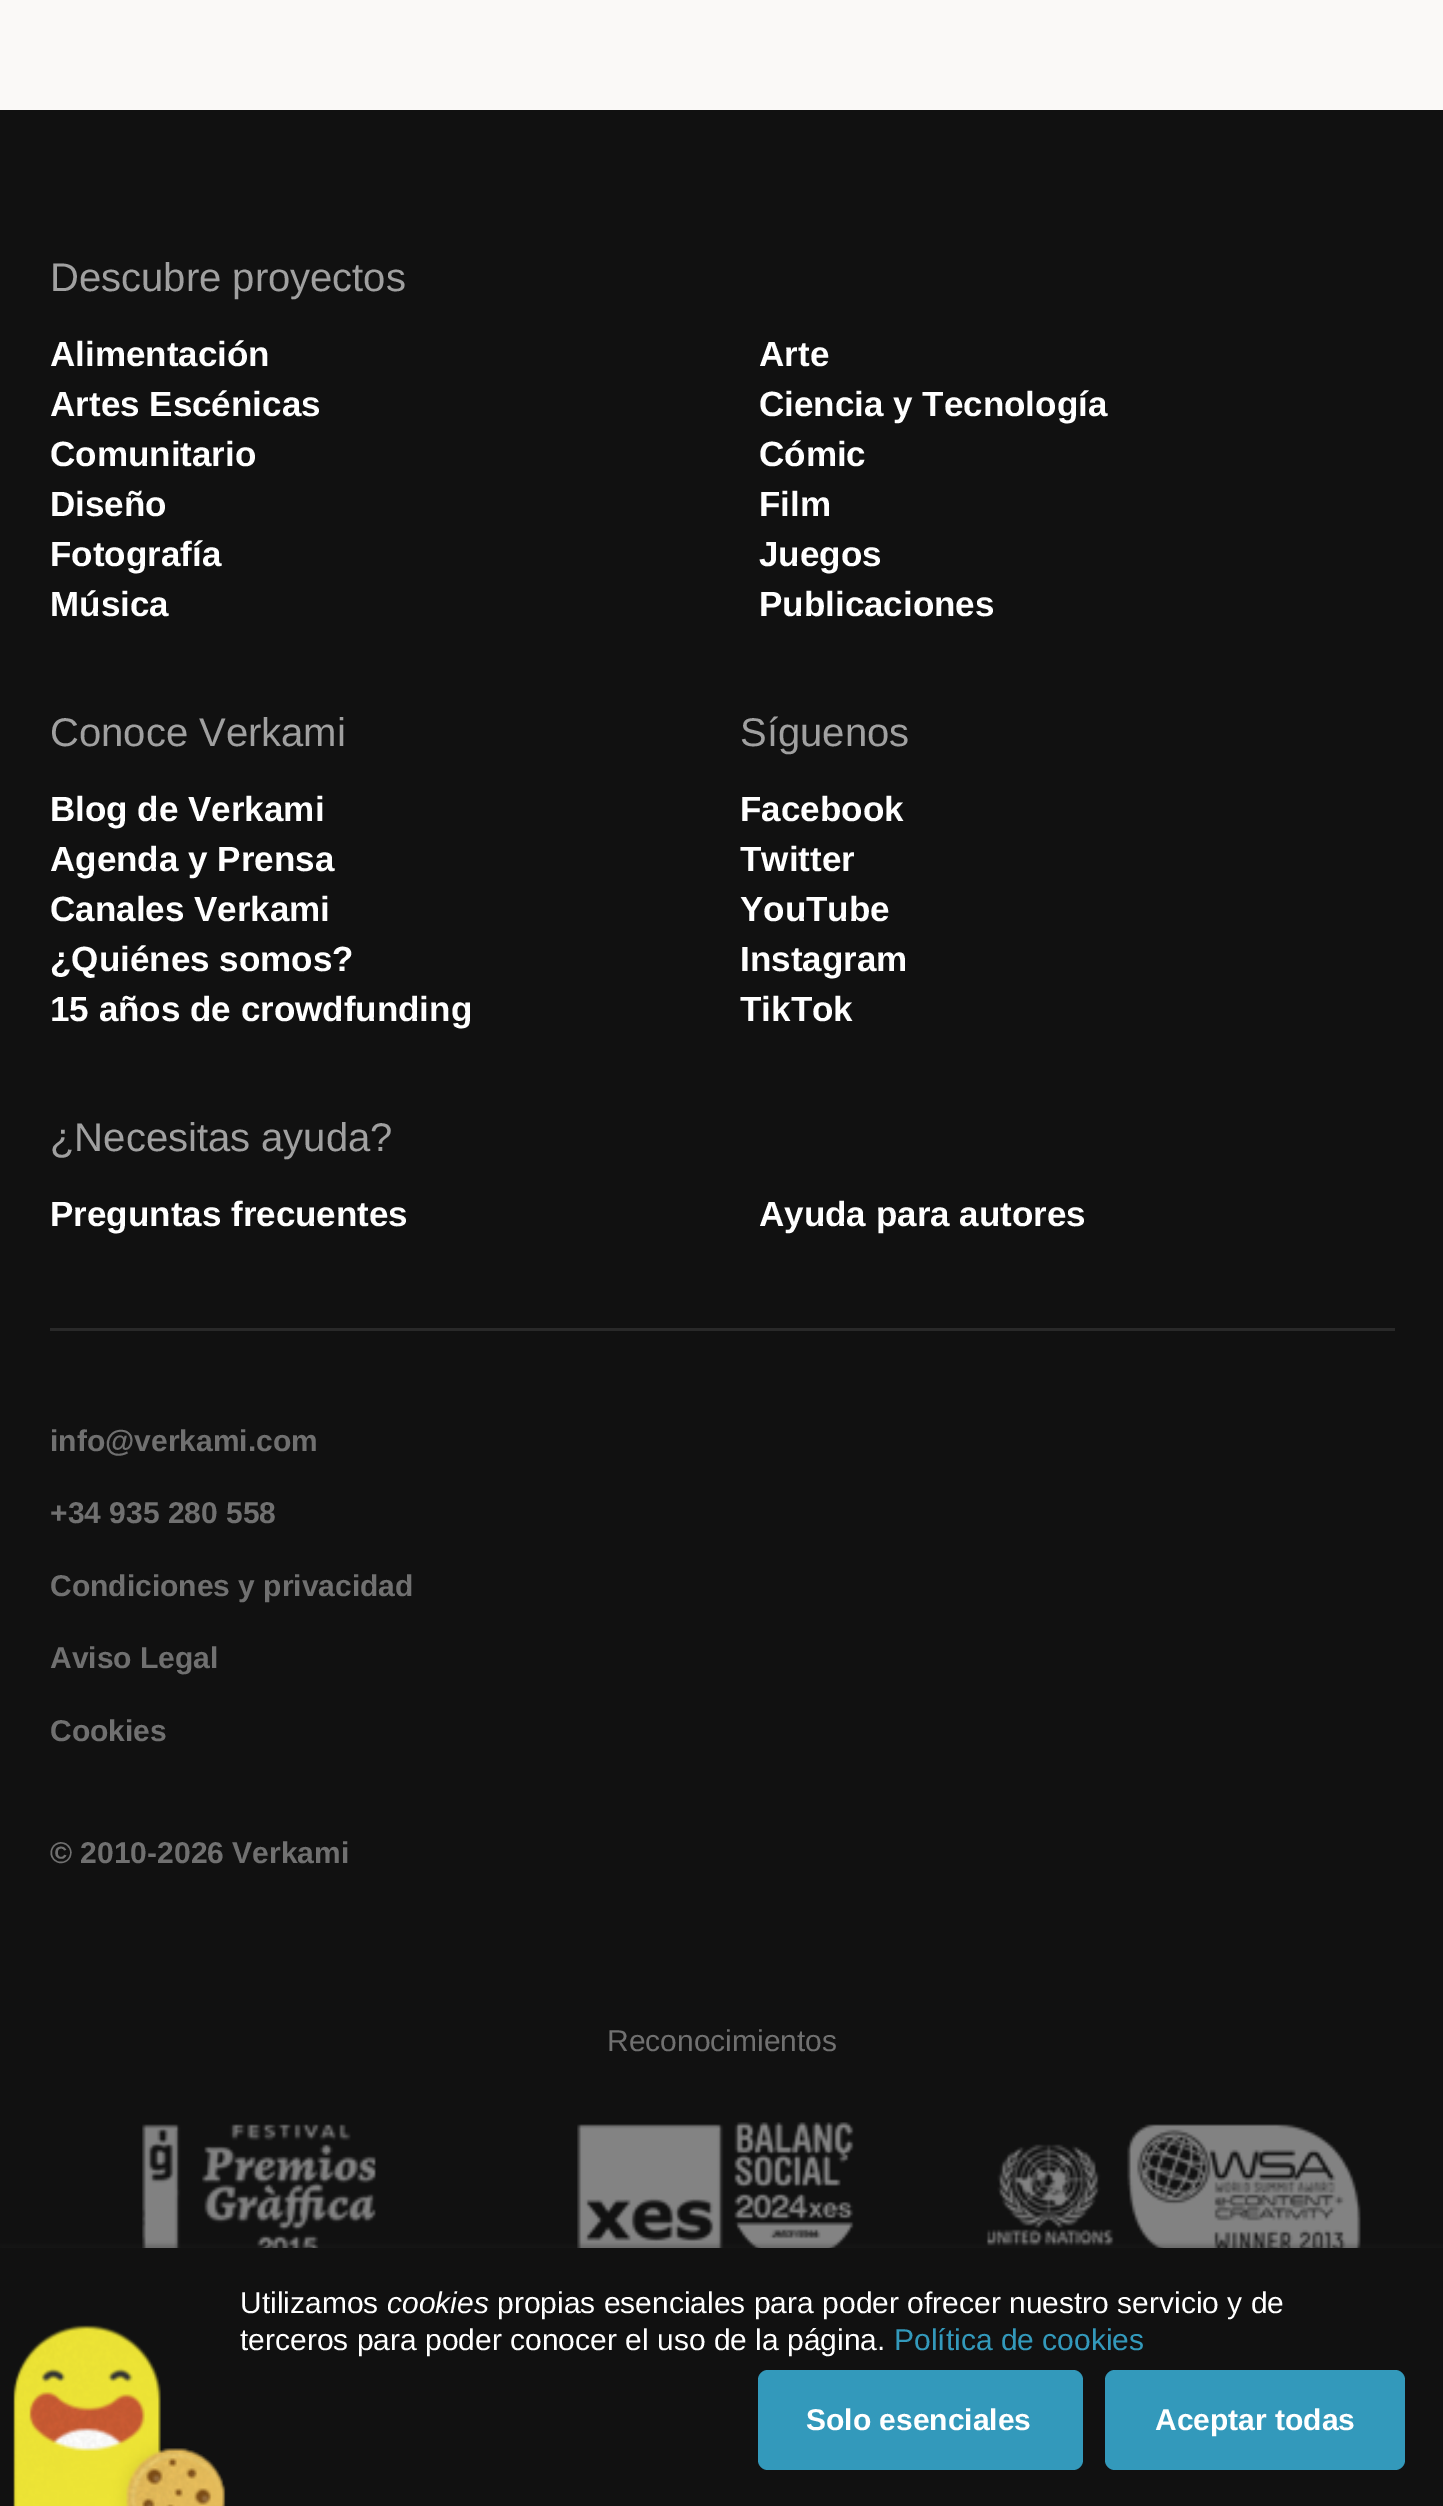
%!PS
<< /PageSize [1443 2506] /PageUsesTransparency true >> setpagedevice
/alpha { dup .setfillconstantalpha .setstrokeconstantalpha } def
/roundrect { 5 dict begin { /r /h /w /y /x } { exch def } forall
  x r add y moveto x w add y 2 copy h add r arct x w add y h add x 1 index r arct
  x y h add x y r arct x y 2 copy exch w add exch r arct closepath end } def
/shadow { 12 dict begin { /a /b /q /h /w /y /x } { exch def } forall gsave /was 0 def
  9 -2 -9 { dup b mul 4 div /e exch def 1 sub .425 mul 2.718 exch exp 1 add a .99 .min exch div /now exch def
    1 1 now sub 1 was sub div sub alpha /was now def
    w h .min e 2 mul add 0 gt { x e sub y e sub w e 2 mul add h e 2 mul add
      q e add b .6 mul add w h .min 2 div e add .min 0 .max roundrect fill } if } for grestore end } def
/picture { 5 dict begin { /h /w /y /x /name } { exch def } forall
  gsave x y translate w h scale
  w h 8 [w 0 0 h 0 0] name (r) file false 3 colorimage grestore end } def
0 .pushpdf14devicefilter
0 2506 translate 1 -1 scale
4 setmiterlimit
0.98 0.976 0.969 setrgbcolor
0 0 1443 2506 rectfill
0.067 setgray
0 110 1443 2138 rectfill
/LiberationSans-Regular [40 0 0 -40 0 0] selectfont
0.627 setgray
50 291 moveto (Descubre proyectos) show
/LiberationSans-Bold [35 0 0 -35 0 0] selectfont
1 setgray
50 366 moveto (Alimentación) show
759 366 moveto (Arte) show
50 416 moveto (Artes Escénicas) show
759 416 moveto (Ciencia y Tecnología) show
50 466 moveto (Comunitario) show
759 466 moveto (Cómic) show
50 516 moveto (Diseño) show
759 516 moveto (Film) show
50 566 moveto (Fotografía) show
759 566 moveto (Juegos) show
50 616 moveto (Música) show
759 616 moveto (Publicaciones) show
/LiberationSans-Regular [40 0 0 -40 0 0] selectfont
0.627 setgray
50 746 moveto (Conoce Verkami) show
/LiberationSans-Bold [35 0 0 -35 0 0] selectfont
1 setgray
50 821 moveto (Blog de Verkami) show
50 871 moveto (Agenda y Prensa) show
50 921 moveto (Canales Verkami) show
50 971 moveto (¿Quiénes somos?) show
50 1021 moveto (15 años de crowdfunding) show
/LiberationSans-Regular [40 0 0 -40 0 0] selectfont
0.627 setgray
740 746 moveto (Síguenos) show
/LiberationSans-Bold [35 0 0 -35 0 0] selectfont
1 setgray
740 821 moveto (Facebook) show
740 871 moveto (Twitter) show
740 921 moveto (YouTube) show
740 971 moveto (Instagram) show
740 1021 moveto (TikTok) show
/LiberationSans-Regular [40 0 0 -40 0 0] selectfont
0.627 setgray
50 1151 moveto (¿Necesitas ayuda?) show
/LiberationSans-Bold [35 0 0 -35 0 0] selectfont
1 setgray
50 1226 moveto (Preguntas frecuentes) show
759 1226 moveto (Ayuda para autores) show
0.161 setgray
50 1328 1345 3 rectfill
/LiberationSans-Bold [30 0 0 -30 0 0] selectfont
0.439 setgray
50 1451 moveto (info@verkami.com) show
50 1523 moveto (+34 935 280 558) show
50 1596 moveto (Condiciones y privacidad) show
50 1668 moveto (Aviso Legal) show
50 1741 moveto (Cookies) show
50 1863 moveto (© 2010-2026 Verkami) show
/LiberationSans-Regular [30 0 0 -30 0 0] selectfont
607 2051 moveto (Reconocimientos) show
(img1.rgb) 142 2124 234 124 picture
(img2.rgb) 577 2122 277 126 picture
(img3.rgb) 986 2124 375 124 picture
0.133 setgray
0 2245 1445 260 0 2.5 0.3 shadow
0.067 setgray
0 2248 1443 258 rectfill
(img4.rgb) 13 2325 213 181 picture
1 setgray
240 2313 moveto (Utilizamos) show
/LiberationSans-Italic [30 0 0 -30 0 0] selectfont
387 2313 moveto (cookies) show
/LiberationSans-Regular [30 0 0 -30 0 0] selectfont
497 2313 moveto (propias esenciales para poder ofrecer nuestro servicio y de) show
240 2350 moveto (terceros para poder conocer el uso de la página.) show
0.2 0.6 0.733 setrgbcolor
894 2350 moveto (Política de cookies) show
758 2370 325 100 10 roundrect fill
/LiberationSans-Bold [30 0 0 -30 0 0] selectfont
1 setgray
806 2430 moveto (Solo esenciales) show
0.2 0.6 0.733 setrgbcolor
1105 2370 300 100 10 roundrect fill
1 setgray
1155 2430 moveto (Aceptar todas) show
.poppdf14devicefilter showpage
